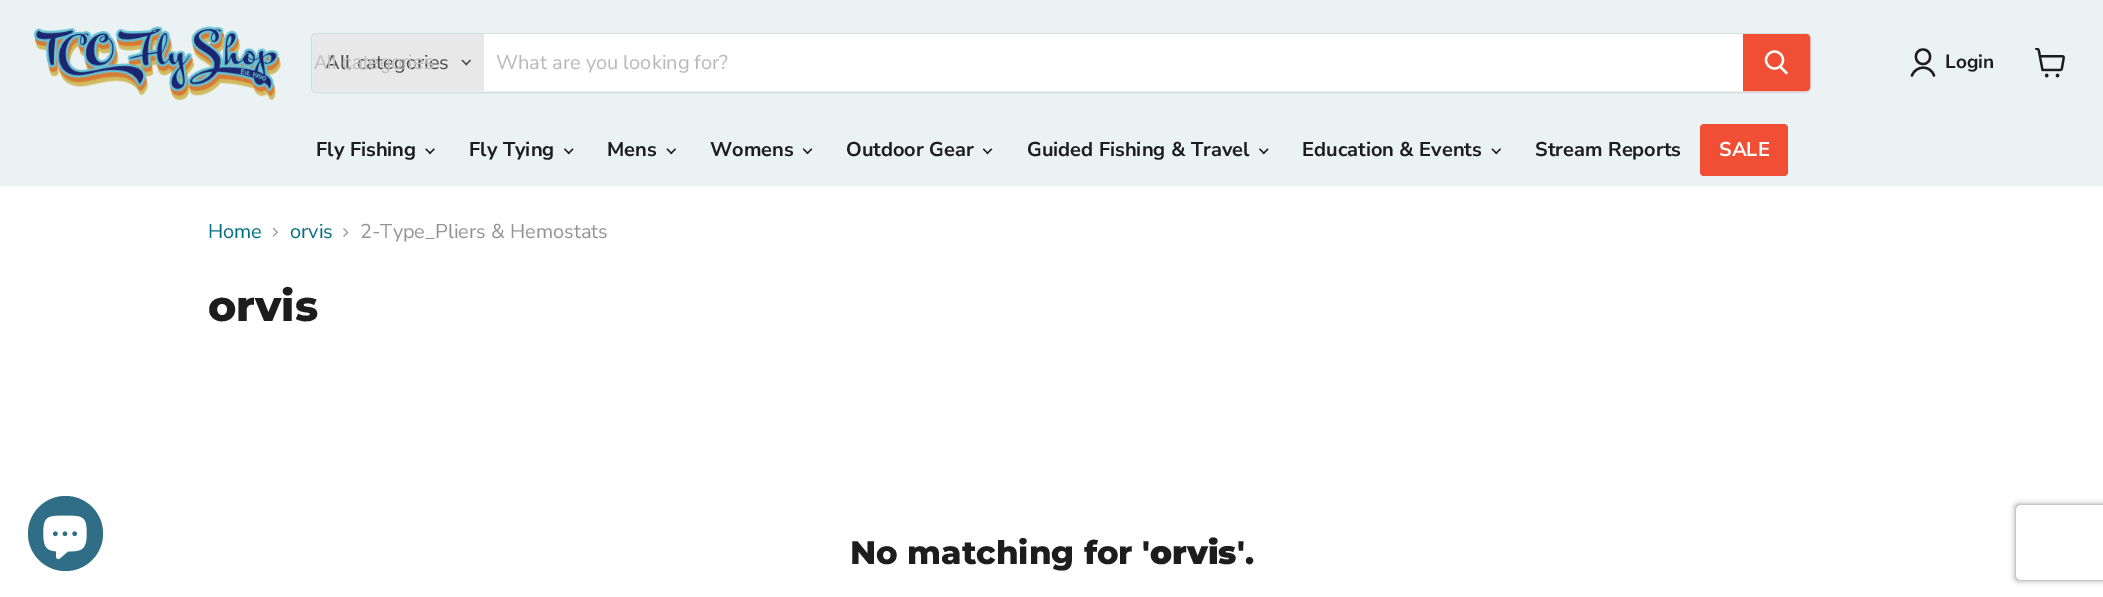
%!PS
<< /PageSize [2103 597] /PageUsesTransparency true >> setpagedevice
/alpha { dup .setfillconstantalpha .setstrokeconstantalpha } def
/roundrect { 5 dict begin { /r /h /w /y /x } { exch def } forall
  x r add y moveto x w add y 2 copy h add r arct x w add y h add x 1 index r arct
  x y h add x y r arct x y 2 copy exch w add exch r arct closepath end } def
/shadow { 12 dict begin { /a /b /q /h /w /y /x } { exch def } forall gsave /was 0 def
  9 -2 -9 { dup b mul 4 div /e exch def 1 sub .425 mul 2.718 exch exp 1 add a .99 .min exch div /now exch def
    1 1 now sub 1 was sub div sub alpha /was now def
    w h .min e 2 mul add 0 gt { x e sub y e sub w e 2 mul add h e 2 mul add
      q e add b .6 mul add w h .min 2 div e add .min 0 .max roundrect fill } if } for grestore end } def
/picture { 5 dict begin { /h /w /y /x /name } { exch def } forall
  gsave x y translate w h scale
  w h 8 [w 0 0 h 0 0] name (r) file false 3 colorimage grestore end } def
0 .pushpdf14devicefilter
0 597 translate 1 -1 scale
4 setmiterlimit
1 setgray
0 0 2103 597 rectfill
0.922 0.949 0.957 setrgbcolor
0 0 2103 186 rectfill
(img1.rgb) 33 26 249 75 picture
0.2 alpha
0.502 setgray
311.5 33.5 1499 59 4.5 roundrect stroke
1 alpha
0.91 setgray
newpath 317 34 moveto 484 34 lineto 484 91 lineto 317 91 lineto 315 91 313 89 313 87 curveto 313 38 lineto 313 36 315 34 317 34 curveto closepath fill
/NunitoSans-Regular [20 0 0 -20 0 0] selectfont
0.302 setgray
325 69 moveto (All categories) show
/LiberationSans-Regular [20 0 0 -20 0 0] selectfont
0.761 setgray
314 69 moveto (All categories) show
(img2.rgb) 461 59 10 7 picture
1 setgray
484 34 1259 57 rectfill
/NunitoSans-Regular [20 0 0 -20 0 0] selectfont
0.722 setgray
496 69 moveto (What are you looking for?) show
0.941 0.31 0.212 setrgbcolor
newpath 1743.5 34.5 moveto 1806 34.5 lineto 1808 34.5 1809.5 36 1809.5 38 curveto 1809.5 87 lineto 1809.5 89 1808 90.5 1806 90.5 curveto 1743.5 90.5 lineto closepath gsave fill grestore
stroke
1 setgray
2.2 setlinewidth
1 setlinecap
newpath 1786.5 73 moveto 1780.5 67 lineto stroke
0 setlinecap
newpath 1774.5 60 8.5 0 360 arc closepath stroke
0.114 setgray
2.3 setlinewidth
1 setlinecap
1 setlinejoin
newpath 1923 64 moveto 1932.5 64 1932.5 49.5 1923 49.5 curveto 1913.5 49.5 1913.5 64 1923 64 curveto closepath 1934 75.5 moveto 1930.5 65 1916 65 1912 75.5 curveto stroke
/NunitoSans-Bold [19 0 0 -19 0 0] selectfont
1945 68 moveto (Login) show
(img3.rgb) 2035 48 30 30 picture
/NunitoSans-Bold [20 0 0 -20 0 0] selectfont
316 156 moveto (Fly Fishing) show
(img4.rgb) 425 148 10 7 picture
469 156 moveto (Fly Tying) show
(img5.rgb) 564 148 10 7 picture
607 156 moveto (Mens) show
(img6.rgb) 666 148 10 7 picture
710 156 moveto (Womens) show
(img7.rgb) 803 148 10 7 picture
846 156 moveto (Outdoor Gear) show
(img7.rgb) 983 148 10 7 picture
1027 156 moveto (Guided Fishing & Travel) show
(img5.rgb) 1259 148 10 7 picture
1302 156 moveto (Education & Events) show
(img6.rgb) 1491 148 10 7 picture
1535 156 moveto (Stream Reports) show
0.941 0.31 0.212 setrgbcolor
1700 124 88 52 4 roundrect fill
1 setgray
1719 156 moveto (SALE) show
0.184 0.431 0.525 setrgbcolor
newpath 65.5 533.5 37.5 0 360 arc closepath fill
(img8.rgb) 43 515 44 45 picture
/NunitoSans-Regular [20 0 0 -20 0 0] selectfont
0.016 0.431 0.51 setrgbcolor
208 238 moveto (Home) show
(img9.rgb) 273 227 5 10 picture
290 238 moveto (orvis) show
(img10.rgb) 343 228 6 9 picture
0.58 setgray
360 238 moveto (2-Type_Pliers & Hemostats) show
/Montserrat-ExtraBold [42.5 0 0 -42.5 0 0] selectfont
0.114 setgray
208 321 moveto (orvis) show
/Montserrat-ExtraBold [32.5 0 0 -32.5 0 0] selectfont
850 564 moveto (No matching for ') show
/Montserrat-Black [32.5 0 0 -32.5 0 0] selectfont
1150 564 moveto (orvis) show
/Montserrat-ExtraBold [32.5 0 0 -32.5 0 0] selectfont
1237 564 moveto ('.) show
gsave
newpath 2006 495 moveto 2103 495 lineto 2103 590 lineto 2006 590 lineto closepath 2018.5 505 moveto 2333.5 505 lineto 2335 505 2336 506 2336 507.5 curveto 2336 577.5 lineto 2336 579 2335 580 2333.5 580 curveto 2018.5 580 lineto 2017 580 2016 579 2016 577.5 curveto 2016 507.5 lineto 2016 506 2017 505 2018.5 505 curveto closepath eoclip newpath
0.502 setgray
2016 505 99 75 2.5 3 1 shadow
grestore
.poppdf14devicefilter showpage
